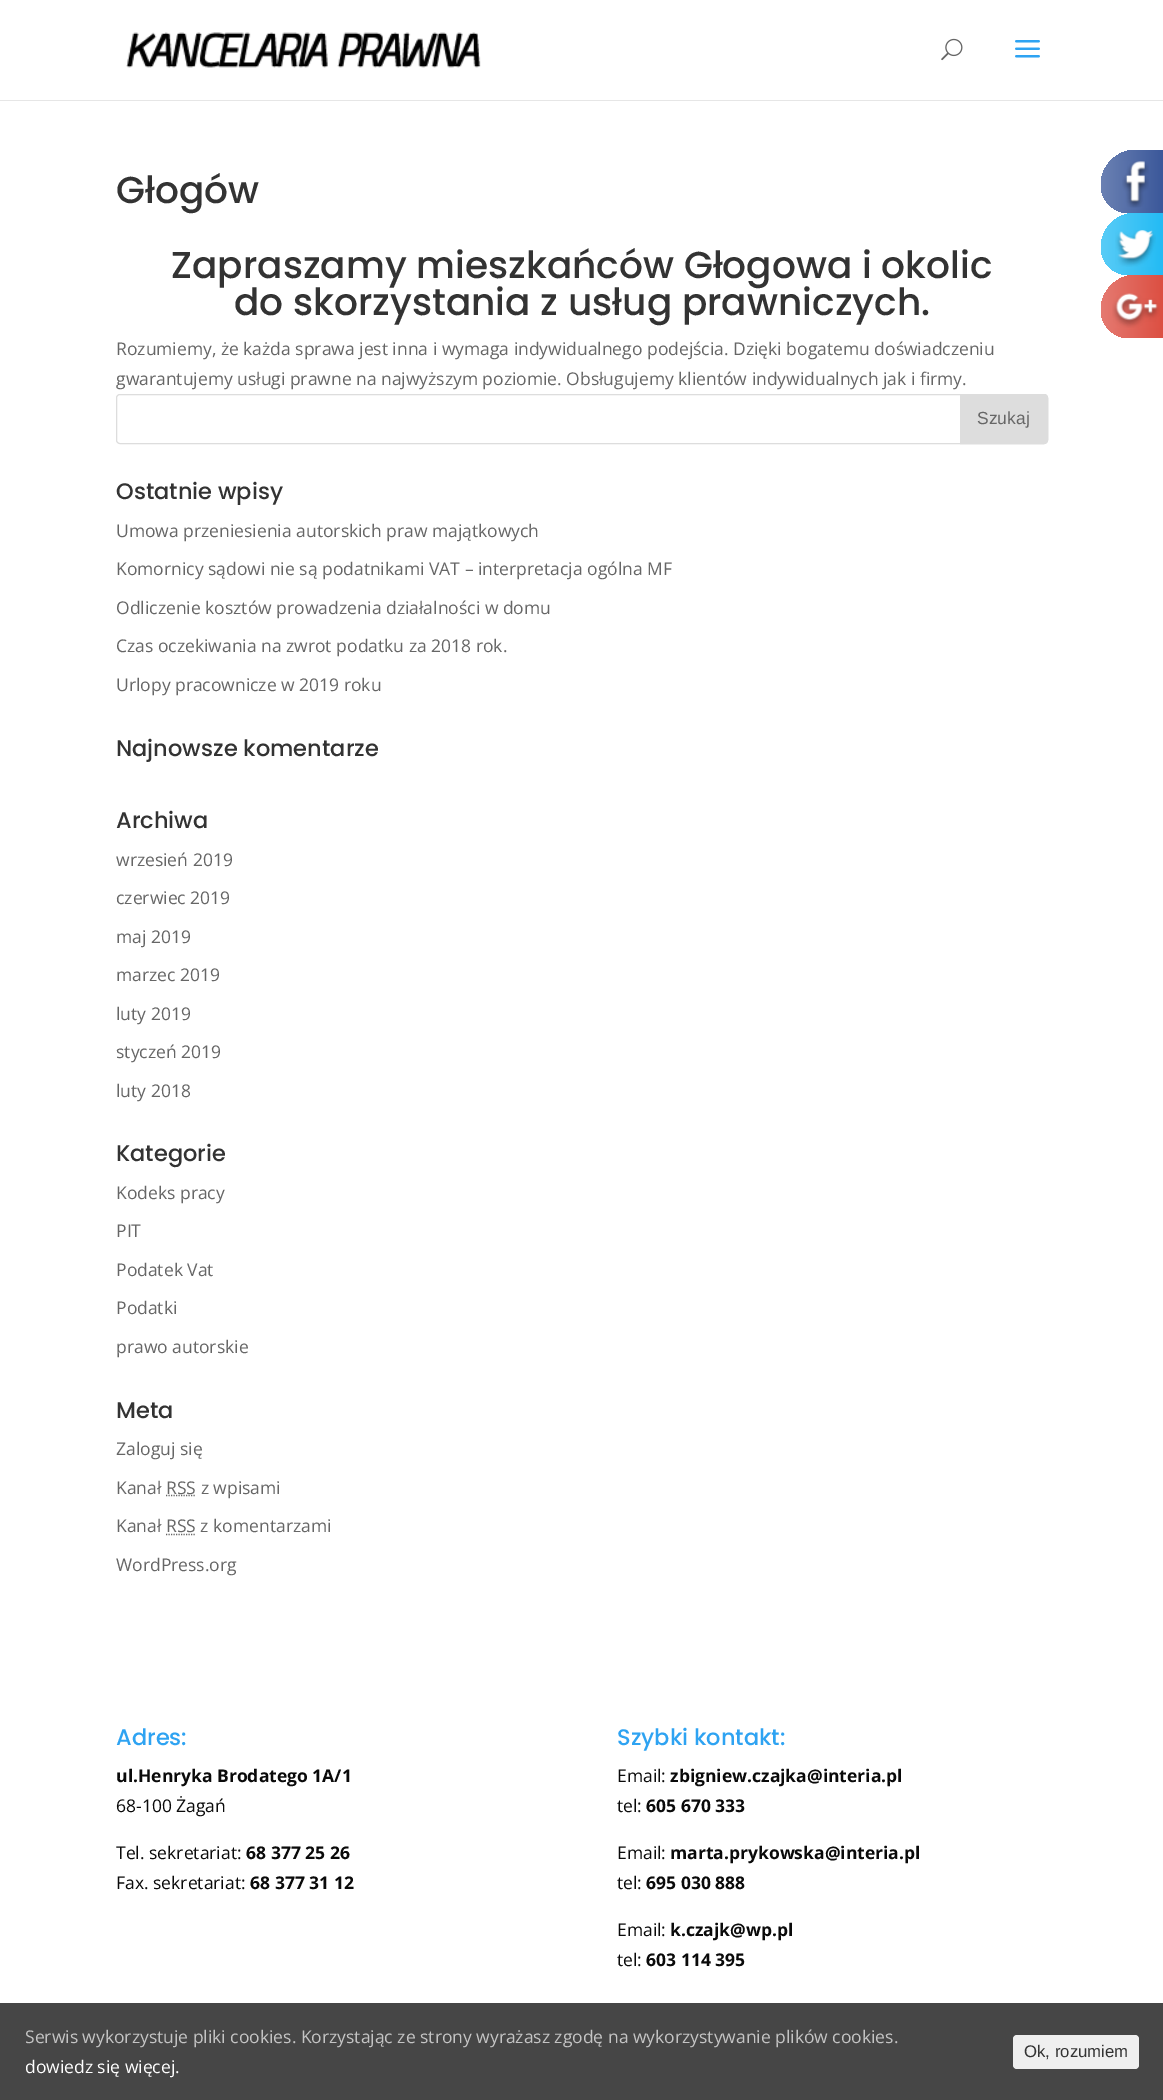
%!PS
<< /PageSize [1163 2100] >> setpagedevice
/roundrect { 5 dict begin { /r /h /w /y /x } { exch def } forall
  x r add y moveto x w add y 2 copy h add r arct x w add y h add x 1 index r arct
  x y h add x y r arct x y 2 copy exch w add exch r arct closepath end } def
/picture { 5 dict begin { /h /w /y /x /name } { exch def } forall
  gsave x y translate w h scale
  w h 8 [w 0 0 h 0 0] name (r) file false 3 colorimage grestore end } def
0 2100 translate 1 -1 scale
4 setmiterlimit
1 setgray
0 0 1163 2100 rectfill
0.902 setgray
newpath 0 100 moveto 0 101 lineto 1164 101 lineto 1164 1 lineto 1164 100 lineto closepath fill
(img1.rgb) 126 32 355 36 picture
(img2.rgb) 941 38 22 23 picture
(img3.rgb) 1015 40 25 18 picture
/Poppins-Medium [37.5 0 0 -37.5 0 0] selectfont
0.2 setgray
116 203 moveto (Głogów) show
171 278 moveto (Zapraszamy mieszkańców Głogowa i okolic) show
234 315 moveto (do skorzystania z usług prawniczych.) show
/OpenSans-Regular [17.5 0 0 -17.5 0 0] selectfont
0.4 setgray
116 355 moveto (Rozumiemy, że każda sprawa jest inna i wymaga indywidualnego podejścia. Dzięki bogatemu doświadczeniu) show
116 385 moveto (gwarantujemy usługi prawne na najwyższym poziomie. Obsługujemy klientów indywidualnych jak i firmy.) show
0.867 setgray
116.5 394.5 931 49 3.5 roundrect stroke
newpath 960.5 394.5 moveto 1044 394.5 lineto 1046 394.5 1047.5 396 1047.5 398 curveto 1047.5 440 lineto 1047.5 442 1046 443.5 1044 443.5 curveto 960.5 443.5 lineto closepath gsave fill grestore
stroke
/LiberationSans-Regular [17.5 0 0 -17.5 0 0] selectfont
0.4 setgray
977 424 moveto (Szukaj) show
/Poppins-Medium [22.5 0 0 -22.5 0 0] selectfont
0.2 setgray
116 499 moveto (Ostatnie wpisy) show
/OpenSans-Regular [17.5 0 0 -17.5 0 0] selectfont
0.4 setgray
116 537 moveto (Umowa przeniesienia autorskich praw majątkowych) show
116 575 moveto (Komornicy sądowi nie są podatnikami VAT – interpretacja ogólna MF) show
116 614 moveto (Odliczenie kosztów prowadzenia działalności w domu) show
116 652 moveto (Czas oczekiwania na zwrot podatku za 2018 rok.) show
116 691 moveto (Urlopy pracownicze w 2019 roku) show
/Poppins-Medium [22.5 0 0 -22.5 0 0] selectfont
0.2 setgray
116 756 moveto (Najnowsze komentarze) show
116 828 moveto (Archiwa) show
/OpenSans-Regular [17.5 0 0 -17.5 0 0] selectfont
0.4 setgray
116 866 moveto (wrzesień 2019) show
116 904 moveto (czerwiec 2019) show
116 943 moveto (maj 2019) show
116 981 moveto (marzec 2019) show
116 1020 moveto (luty 2019) show
116 1058 moveto (styczeń 2019) show
116 1097 moveto (luty 2018) show
/Poppins-Medium [22.5 0 0 -22.5 0 0] selectfont
0.2 setgray
116 1161 moveto (Kategorie) show
/OpenSans-Regular [17.5 0 0 -17.5 0 0] selectfont
0.4 setgray
116 1199 moveto (Kodeks pracy) show
116 1237 moveto (PIT) show
116 1276 moveto (Podatek Vat) show
116 1314 moveto (Podatki) show
116 1353 moveto (prawo autorskie) show
/Poppins-Medium [22.5 0 0 -22.5 0 0] selectfont
0.2 setgray
116 1418 moveto (Meta) show
/OpenSans-Regular [17.5 0 0 -17.5 0 0] selectfont
0.4 setgray
116 1455 moveto (Zaloguj się) show
116 1494 moveto (Kanał) show
1.2 setlinewidth
[1.25 1.25] 0 setdash
newpath 166 1495.5 moveto 196 1495.5 lineto stroke
166 1494 moveto (RSS z wpisami) show
116 1532 moveto (Kanał RSS z komentarzami) show
newpath 166 1534.5 moveto 196 1534.5 lineto stroke
116 1571 moveto (WordPress.org) show
/Poppins-Medium [22.5 0 0 -22.5 0 0] selectfont
0.18 0.639 0.949 setrgbcolor
116 1745 moveto (Adres:) show
/OpenSans-Bold [17.5 0 0 -17.5 0 0] selectfont
0.039 setgray
116 1782 moveto (ul.Henryka Brodatego 1A/1) show
/OpenSans-Regular [17.5 0 0 -17.5 0 0] selectfont
116 1812 moveto (68-100 Żagań) show
116 1859 moveto (Tel. sekretariat:) show
/OpenSans-Bold [17.5 0 0 -17.5 0 0] selectfont
246 1859 moveto (68 377 25 26) show
/OpenSans-Regular [17.5 0 0 -17.5 0 0] selectfont
116 1889 moveto (Fax. sekretariat:) show
/OpenSans-Bold [17.5 0 0 -17.5 0 0] selectfont
250 1889 moveto (68 377 31 12) show
/Poppins-Medium [22.5 0 0 -22.5 0 0] selectfont
0.18 0.639 0.949 setrgbcolor
617 1745 moveto (Szybki kontakt:) show
/OpenSans-Regular [17.5 0 0 -17.5 0 0] selectfont
0.039 setgray
617 1782 moveto (Email:) show
/OpenSans-Bold [17.5 0 0 -17.5 0 0] selectfont
670 1782 moveto (zbigniew.czajka@interia.pl) show
/OpenSans-Regular [17.5 0 0 -17.5 0 0] selectfont
617 1812 moveto (tel:) show
/OpenSans-Bold [17.5 0 0 -17.5 0 0] selectfont
646 1812 moveto (605 670 333) show
/OpenSans-Regular [17.5 0 0 -17.5 0 0] selectfont
617 1859 moveto (Email:) show
/OpenSans-Bold [17.5 0 0 -17.5 0 0] selectfont
670 1859 moveto (marta.prykowska@interia.pl) show
/OpenSans-Regular [17.5 0 0 -17.5 0 0] selectfont
617 1889 moveto (tel:) show
/OpenSans-Bold [17.5 0 0 -17.5 0 0] selectfont
646 1889 moveto (695 030 888) show
/OpenSans-Regular [17.5 0 0 -17.5 0 0] selectfont
617 1936 moveto (Email:) show
/OpenSans-Bold [17.5 0 0 -17.5 0 0] selectfont
670 1936 moveto (k.czajk@wp.pl) show
/OpenSans-Regular [17.5 0 0 -17.5 0 0] selectfont
617 1966 moveto (tel:) show
/OpenSans-Bold [17.5 0 0 -17.5 0 0] selectfont
646 1966 moveto (603 114 395) show
gsave newpath 1136 150 moveto 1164 150 lineto 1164 213 lineto 1129 213 lineto 1113.5 213 1101 200.5 1101 185 curveto 1101 165.5 1116.5 150 1136 150 curveto closepath clip newpath
<< /ShadingType 2 /ColorSpace /DeviceRGB /Coords [1101 181 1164 181] /Extend [true true] /Function << /FunctionType 2 /Domain [0 1] /C0 [0.42 0.506 0.702] /C1 [0.227 0.341 0.604] /N 1 >> >> shfill grestore
(img4.rgb) 1122 161 27 47 picture
gsave newpath 1135.5 213 moveto 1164 213 lineto 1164 275 lineto 1128.5 275 lineto 1113.5 275 1101 262.5 1101 247.5 curveto 1101 228.5 1116.5 213 1135.5 213 curveto closepath clip newpath
<< /ShadingType 2 /ColorSpace /DeviceRGB /Coords [1101 244 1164 244] /Extend [true true] /Function << /FunctionType 2 /Domain [0 1] /C0 [0.349 0.8 0.969] /C1 [0.133 0.733 0.957] /N 1 >> >> shfill grestore
(img5.rgb) 1115 230 41 37 picture
gsave newpath 1136 275 moveto 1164 275 lineto 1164 338 lineto 1129 338 lineto 1113.5 338 1101 325.5 1101 310 curveto 1101 290.5 1116.5 275 1136 275 curveto closepath clip newpath
<< /ShadingType 2 /ColorSpace /DeviceRGB /Coords [1101 306 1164 306] /Extend [true true] /Function << /FunctionType 2 /Domain [0 1] /C0 [0.898 0.478 0.443] /C1 [0.863 0.306 0.255] /N 1 >> >> shfill grestore
(img6.rgb) 1112 293 48 35 picture
0.275 setgray
0 2003 1163 97 rectfill
/OpenSans-Regular [17.5 0 0 -17.5 0 0] selectfont
0.769 setgray
25 2043 moveto (Serwis wykorzystuje pliki cookies. Korzystając ze strony wyrażasz zgodę na wykorzystywanie plików cookies.) show
1 setgray
25 2073 moveto (dowiedz się więcej.) show
0.937 setgray
1013 2035 126 34 4 roundrect fill
/LiberationSans-Regular [16.75 0 0 -16.75 0 0] selectfont
0.2 setgray
1024 2057 moveto (Ok, rozumiem) show
showpage
